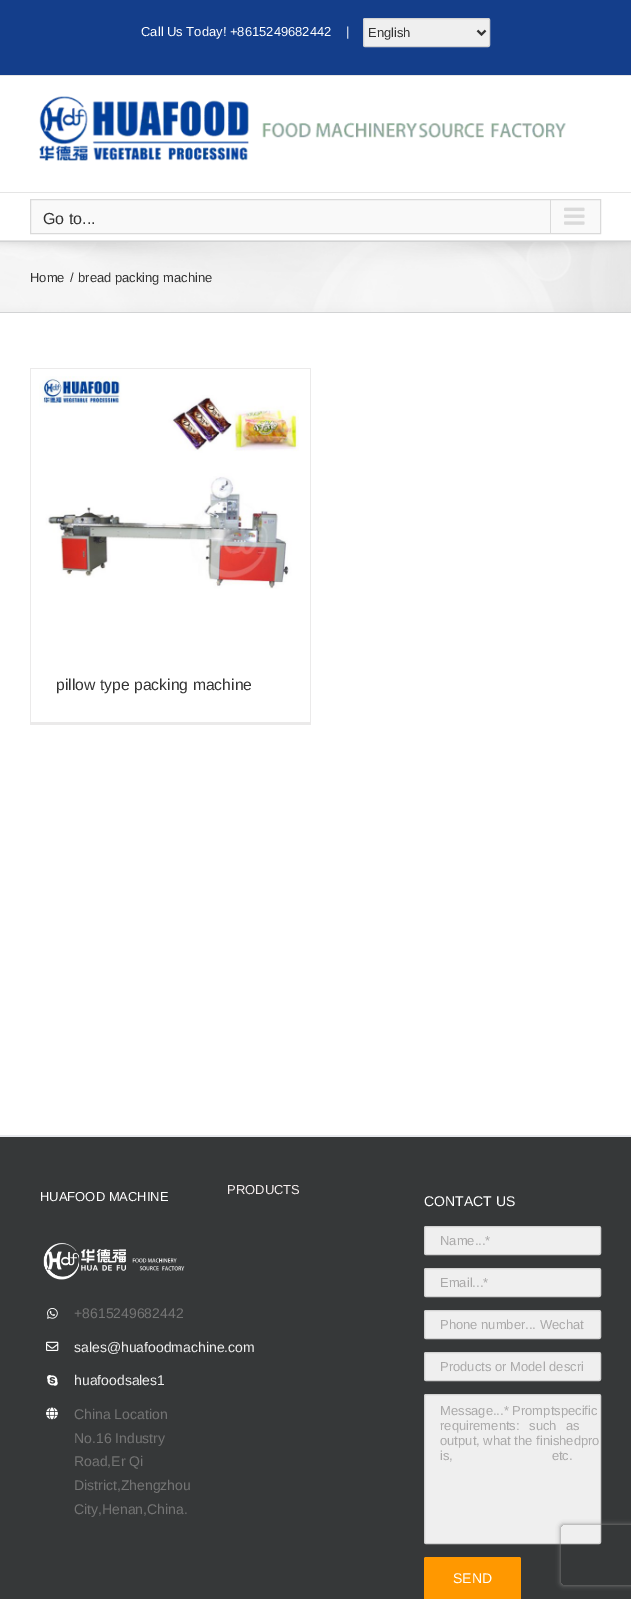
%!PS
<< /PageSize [631 1599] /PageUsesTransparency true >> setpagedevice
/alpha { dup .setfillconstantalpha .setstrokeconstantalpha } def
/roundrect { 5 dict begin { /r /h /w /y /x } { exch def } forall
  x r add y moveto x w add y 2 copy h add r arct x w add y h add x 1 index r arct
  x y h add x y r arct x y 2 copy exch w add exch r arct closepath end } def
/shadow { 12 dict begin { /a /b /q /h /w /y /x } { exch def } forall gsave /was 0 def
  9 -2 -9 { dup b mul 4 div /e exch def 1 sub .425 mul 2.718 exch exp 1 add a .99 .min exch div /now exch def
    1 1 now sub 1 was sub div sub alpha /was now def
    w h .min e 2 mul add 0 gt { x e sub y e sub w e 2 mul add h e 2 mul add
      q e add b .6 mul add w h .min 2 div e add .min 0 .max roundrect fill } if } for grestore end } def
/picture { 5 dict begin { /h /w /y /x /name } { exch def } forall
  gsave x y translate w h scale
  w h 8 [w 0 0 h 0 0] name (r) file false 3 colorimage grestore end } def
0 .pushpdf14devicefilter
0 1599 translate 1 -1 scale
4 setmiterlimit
1 setgray
0 0 631 1599 rectfill
0.078 0.243 0.545 setrgbcolor
0 0 631 75 rectfill
0.898 setgray
0 75 631 1 rectfill
/LiberationSans-Regular [13 0 0 -13 0 0] selectfont
1 setgray
141 36 moveto (Call Us Today! +8615249682442    |) show
0.937 setgray
363.5 18.5 126 28 1.5 roundrect gsave fill grestore
0.824 setgray
stroke
0.2 setgray
2 setlinewidth
newpath 477.5 30.5 moveto 481.5 34.5 lineto 485.5 30.5 lineto stroke
368 37 moveto (English) show
0.898 setgray
0 192 631 1 rectfill
(img1.rgb) 39 96 527 65 picture
0 240 631 1 rectfill
0.976 setgray
newpath 30.5 199.5 moveto 600.5 199.5 lineto 600.5 233.5 lineto 30.5 233.5 lineto closepath gsave fill grestore
0.855 setgray
1 setlinewidth
stroke
/LiberationSans-Regular [16 0 0 -16 0 0] selectfont
0.2 setgray
43 224 moveto (Go to...) show
0.855 setgray
550 200 1 33 rectfill
(img2.rgb) 564 207 21 18 picture
0.965 setgray
0 242 631 70 rectfill
(img3.rgb) 0 242 631 70 picture
0.824 0.827 0.831 setrgbcolor
0 241 631 1 rectfill
0 312 631 1 rectfill
/LiberationSans-Regular [13 0 0 -13 0 0] selectfont
0.2 setgray
30 282 moveto (Home) show
70 282 moveto (/) show
78 282 moveto (bread packing machine) show
0.922 0.918 0.918 setrgbcolor
30 368 281 1 rectfill
310 368 1 357 rectfill
30 722 281 3 rectfill
30 368 1 357 rectfill
(img4.rgb) 39 376 260 213 picture
/LiberationSans-Regular [15.75 0 0 -15.75 0 0] selectfont
0.2 setgray
56 690 moveto (pillow type packing machine) show
0.212 0.22 0.224 setrgbcolor
0 1137 631 462 rectfill
0.914 0.918 0.933 setrgbcolor
0 1135 631 2 rectfill
/LiberationSans-Regular [13 0 0 -13 0 0] selectfont
0.969 0.937 0.937 setrgbcolor
227 1194 moveto (PRODUCTS) show
1 setgray
40 1201 moveto (HUAFOOD MACHINE) show
(img5.rgb) 43 1242 142 38 picture
(img6.rgb) 47 1308 11 11 picture
/LiberationSans-Regular [14 0 0 -14 0 0] selectfont
0.455 setgray
74 1318 moveto (+8615249682442) show
(img7.rgb) 46 1341 13 10 picture
0.937 setgray
74 1352 moveto (sales@huafoodmachine.com) show
(img8.rgb) 47 1375 11 11 picture
74 1385 moveto (huafoodsales1) show
(img9.rgb) 46 1407 12 13 picture
0.455 setgray
74 1419 moveto (China Location) show
74 1443 moveto (No.16 Industry) show
74 1466 moveto (Road,Er Qi) show
74 1490 moveto (District,Zhengzhou) show
74 1514 moveto (City,Henan,China.) show
1 setgray
424 1206 moveto (CONTACT US) show
0.937 setgray
424.5 1226.5 176 28 1.5 roundrect gsave fill grestore
0.824 setgray
stroke
/LiberationSans-Regular [13 0 0 -13 0 0] selectfont
0.667 0.663 0.663 setrgbcolor
440 1245 moveto (Name...*) show
0.937 setgray
424.5 1268.5 176 28 1.5 roundrect gsave fill grestore
0.824 setgray
stroke
0.667 0.663 0.663 setrgbcolor
440 1287 moveto (Email...*) show
0.937 setgray
424.5 1310.5 176 28 1.5 roundrect gsave fill grestore
0.824 setgray
stroke
0.667 0.663 0.663 setrgbcolor
440 1329 moveto (Phone number... Wechat) show
0.937 setgray
424.5 1352.5 176 28 1.5 roundrect gsave fill grestore
0.824 setgray
stroke
0.667 0.663 0.663 setrgbcolor
440 1371 moveto (Products or Model descri) show
0.937 setgray
424.5 1394.5 176 149 1.5 roundrect gsave fill grestore
0.824 setgray
stroke
0.667 0.663 0.663 setrgbcolor
440 1415 moveto (Message...* Promptspecific) show
440 1430 moveto 6 0 32 (requirements: such) widthshow
566 1430 moveto (as) show
440 1445 moveto (output, what the finishedpro) show
440 1460 moveto 95 0 32 (is, etc.) widthshow
1 0.596 0 setrgbcolor
424 1557 97 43 2 roundrect fill
/LiberationSans-Regular [14 0 0 -14 0 0] selectfont
1 setgray
453 1583 moveto (SEND) show
gsave
newpath 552 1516 moveto 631 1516 lineto 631 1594 lineto 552 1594 lineto closepath 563 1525 moveto 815 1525 lineto 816 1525 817 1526 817 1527 curveto 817 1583 lineto 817 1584 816 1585 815 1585 curveto 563 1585 lineto 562 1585 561 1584 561 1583 curveto 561 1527 lineto 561 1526 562 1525 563 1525 curveto closepath eoclip newpath
0.502 setgray
561 1525 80 60 2 2.5 1 shadow
grestore
.poppdf14devicefilter showpage
